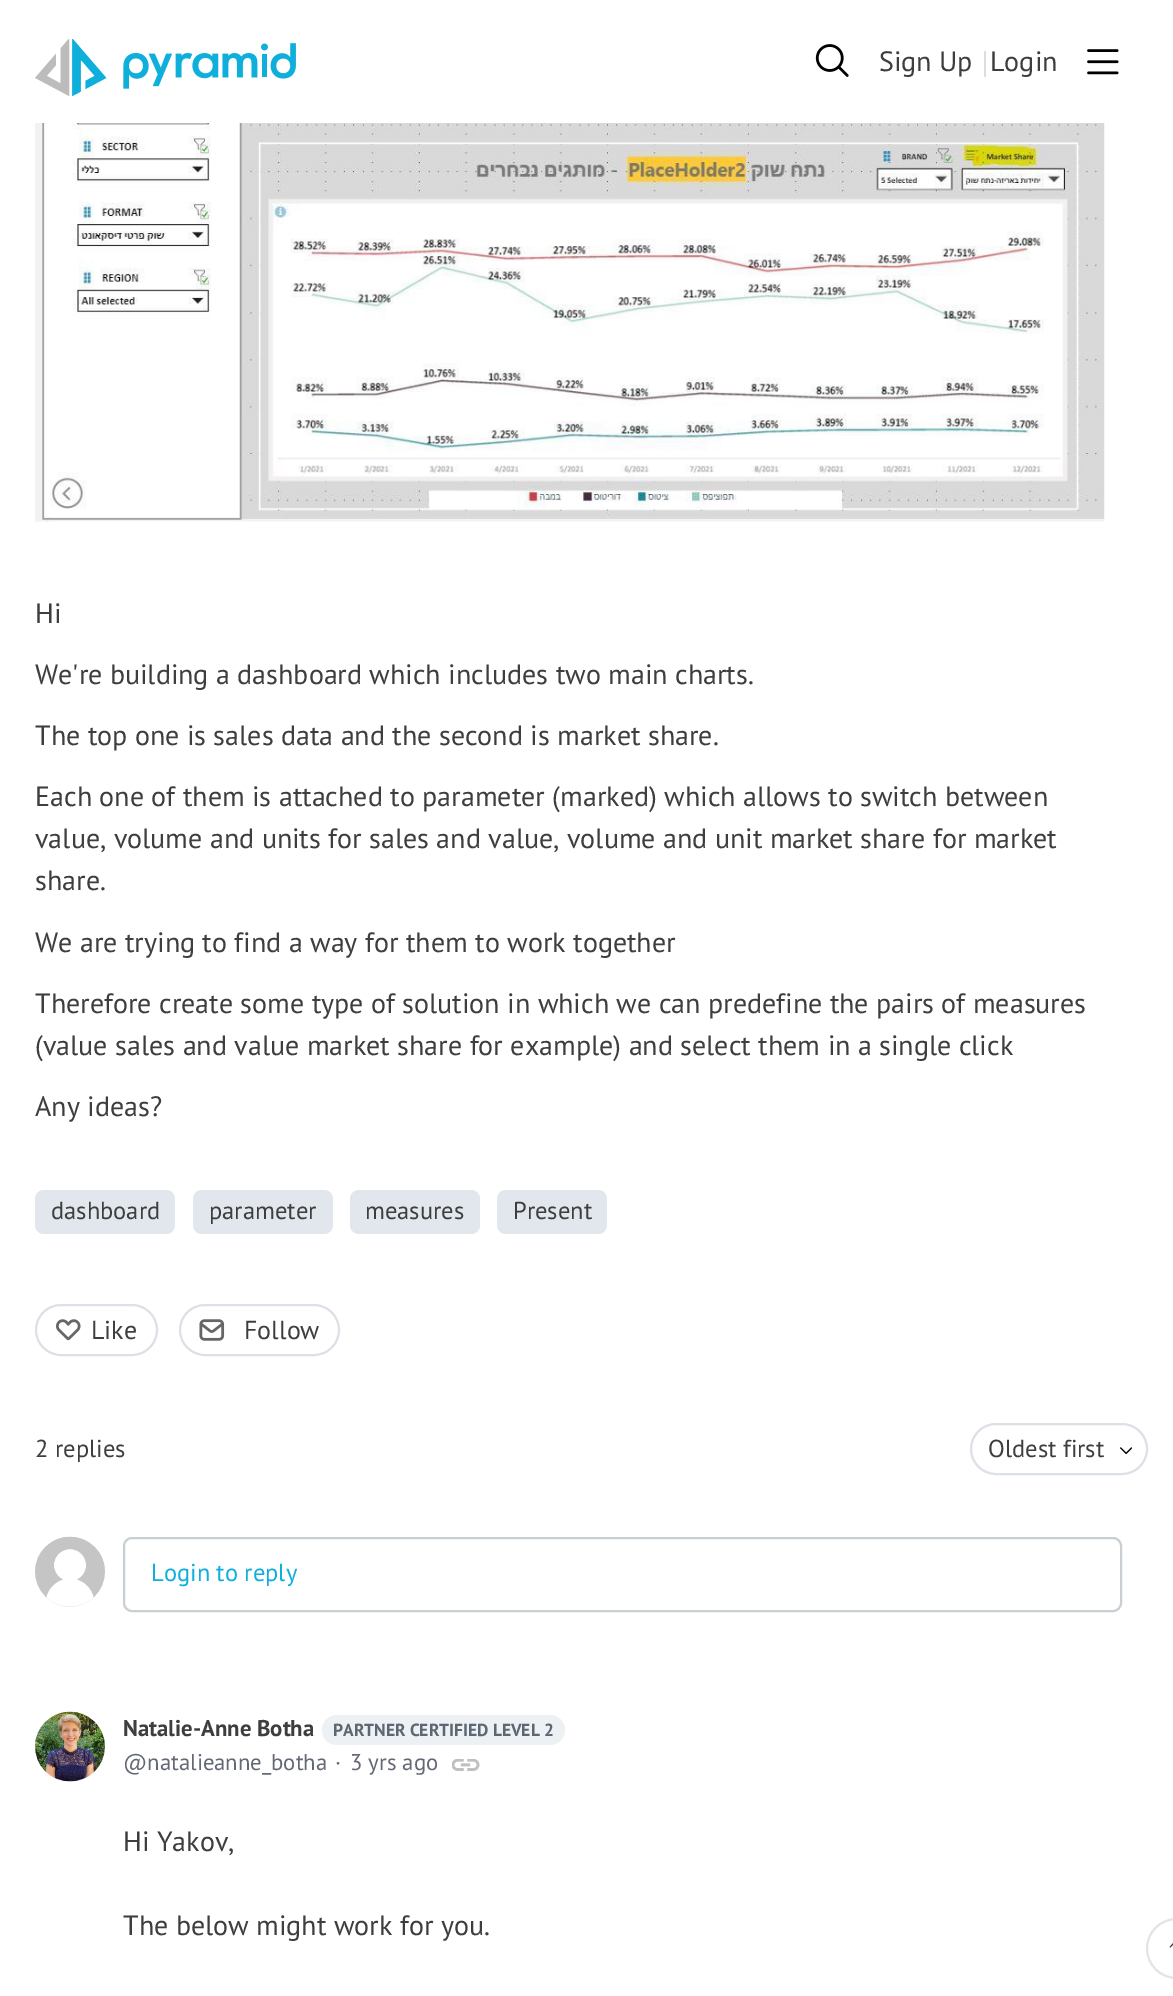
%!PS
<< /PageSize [1173 1996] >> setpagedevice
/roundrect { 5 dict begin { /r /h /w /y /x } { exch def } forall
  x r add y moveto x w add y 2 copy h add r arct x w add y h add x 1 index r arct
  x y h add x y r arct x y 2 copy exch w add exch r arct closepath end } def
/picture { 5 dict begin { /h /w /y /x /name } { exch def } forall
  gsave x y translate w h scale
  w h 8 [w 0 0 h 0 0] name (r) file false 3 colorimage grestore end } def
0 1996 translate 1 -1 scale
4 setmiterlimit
1 setgray
0 0 1173 1996 rectfill
(img1.rgb) 35 39 261 57 picture
(img2.rgb) 815 44 34 33 picture
/PTSans-Regular [28 0 0 -28 0 0] selectfont
0.243 setgray
879 71 moveto (Sign Up) show
0.867 setgray
984 51 2 26 rectfill
0.243 setgray
990 71 moveto (Login) show
(img3.rgb) 1087 49 32 26 picture
(img4.rgb) 35 123 1070 399 picture
35 623 moveto (Hi) show
35 684 moveto (We're building a dashboard which includes two main charts.) show
35 745 moveto (The top one is sales data and the second is market share.) show
35 806 moveto (Each one of them is attached to parameter \(marked\) which allows to switch between) show
35 848 moveto (value, volume and units for sales and value, volume and unit market share for market) show
35 890 moveto (share.) show
35 952 moveto (We are trying to find a way for them to work together) show
35 1013 moveto (Therefore create some type of solution in which we can predefine the pairs of measures) show
35 1055 moveto (\(value sales and value market share for example\) and select them in a single click) show
35 1116 moveto (Any ideas?) show
0.882 0.906 0.925 setrgbcolor
35 1190 140 44 9 roundrect fill
/PTSans-Regular [24.5 0 0 -24.5 0 0] selectfont
0.243 setgray
51 1219 moveto (dashboard) show
0.882 0.906 0.925 setrgbcolor
193 1190 140 44 9 roundrect fill
0.243 setgray
209 1219 moveto (parameter) show
0.882 0.906 0.925 setrgbcolor
350 1190 130 44 9 roundrect fill
0.243 setgray
365 1219 moveto (measures) show
0.882 0.906 0.925 setrgbcolor
497 1190 110 44 9 roundrect fill
0.243 setgray
513 1219 moveto (Present) show
0.863 0.878 0.906 setrgbcolor
2 setlinewidth
36 1305 121 50 25 roundrect stroke
(img5.rgb) 56 1319 25 22 picture
/PTSans-Regular [26 0 0 -26 0 0] selectfont
0.243 setgray
91 1339 moveto (Like) show
0.863 0.878 0.906 setrgbcolor
180 1305 159 50 25 roundrect stroke
(img6.rgb) 199 1319 26 22 picture
0.243 setgray
244 1339 moveto (Follow) show
/PTSans-Regular [24.5 0 0 -24.5 0 0] selectfont
35 1457 moveto (2 replies) show
0.863 0.878 0.906 setrgbcolor
971 1424 176 50 25 roundrect stroke
0.243 setgray
988 1457 moveto (Oldest first) show
(img7.rgb) 1120 1447 12 7 picture
0.937 setgray
newpath 70 1572 35 0 360 arc closepath fill
(img8.rgb) 35 1536 70 70 picture
0.788 0.816 0.831 setrgbcolor
124 1538 997 73 8 roundrect stroke
0.055 0.686 0.859 setrgbcolor
151 1581 moveto (Login to reply) show
0.937 setgray
newpath 70 1747 35 0 360 arc closepath fill
(img9.rgb) 35 1711 70 71 picture
/PTSans-Bold [22.75 0 0 -22.75 0 0] selectfont
0.243 setgray
123 1736 moveto (Natalie-Anne Botha) show
0.929 0.945 0.957 setrgbcolor
322 1715 243 30 15 roundrect fill
/PTSans-Bold [17.5 0 0 -17.5 0 0] selectfont
0.357 0.404 0.447 setrgbcolor
333 1736 moveto (PARTNER CERTIFIED LEVEL 2) show
/PTSans-Regular [22.75 0 0 -22.75 0 0] selectfont
0.392 0.412 0.463 setrgbcolor
123 1770 moveto (@natalieanne_botha) show
335 1770 moveto (·) show
350 1770 moveto (3 yrs ago) show
(img10.rgb) 452 1759 28 12 picture
/PTSans-Regular [28 0 0 -28 0 0] selectfont
0.243 setgray
123 1851 moveto (Hi Yakov,) show
123 1935 moveto (The below might work for you.) show
(img11.rgb) 1169 1943 4 5 picture
0.894 setgray
1147 1919 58 59 29.5 roundrect stroke
showpage
